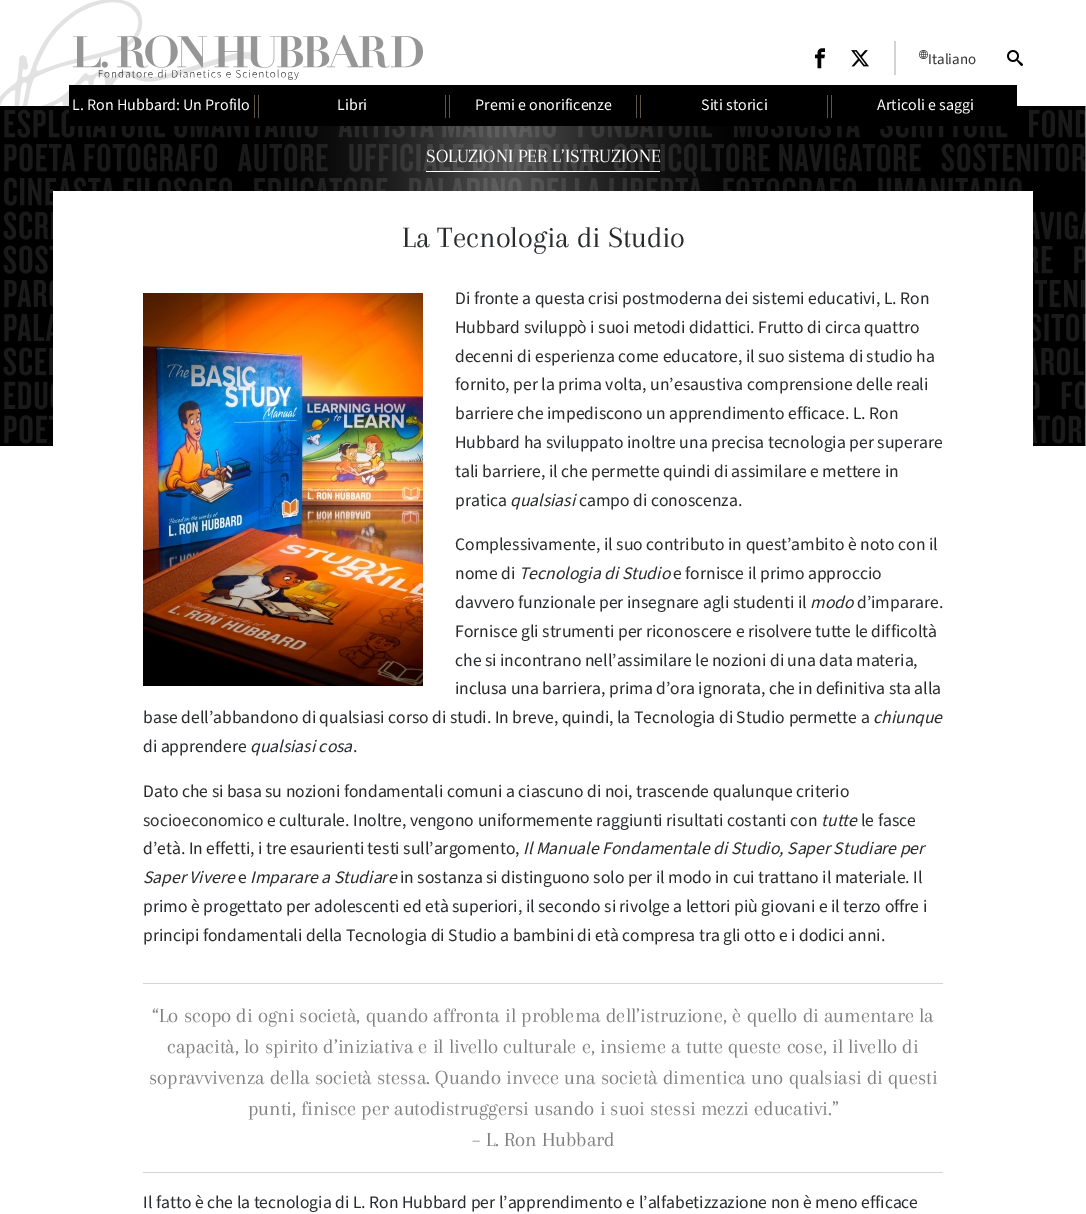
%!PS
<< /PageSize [1086 1214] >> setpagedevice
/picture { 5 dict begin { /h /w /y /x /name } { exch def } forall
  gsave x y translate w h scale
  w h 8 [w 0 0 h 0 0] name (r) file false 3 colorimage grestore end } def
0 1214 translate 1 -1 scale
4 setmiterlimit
1 setgray
0 0 1086 1214 rectfill
(img1.rgb) 0 0 252 106 picture
(img2.rgb) 73 35 350 45 picture
(img3.rgb) 815 48 10 21 picture
(img4.rgb) 851 50 18 17 picture
0.827 0.827 0.835 setrgbcolor
894 41 2 34 rectfill
(img5.rgb) 919 50 9 9 picture
/SourceSans3-Regular [15 0 0 -15 0 0] selectfont
0.2 setgray
928 64 moveto (Italiano) show
(img6.rgb) 1007 50 16 16 picture
(img7.rgb) 0 106 1086 340 picture
0 setgray
69 85 948 41 rectfill
/SourceSans3-Regular [16 0 0 -16 0 0] selectfont
1 setgray
72 110 moveto (L. Ron Hubbard: Un Profilo) show
0.365 0.333 0.282 setrgbcolor
258 95 1 23 rectfill
254 95 1 23 rectfill
1 setgray
337 110 moveto (Libri) show
0.365 0.333 0.282 setrgbcolor
449 95 1 23 rectfill
445 95 1 23 rectfill
1 setgray
475 110 moveto (Premi e onorificenze) show
0.365 0.333 0.282 setrgbcolor
640 95 1 23 rectfill
636 95 1 23 rectfill
1 setgray
701 110 moveto (Siti storici) show
0.365 0.333 0.282 setrgbcolor
831 95 1 23 rectfill
827 95 1 23 rectfill
1 setgray
877 110 moveto (Articoli e saggi) show
426 171 234 1 rectfill
/Arapey-Regular [19.25 0 0 -19.25 0 0] selectfont
426 162 moveto (SOLUZIONI PER L’ISTRUZIONE) show
53 191 980 255 rectfill
/Arapey-Regular [30.5 0 0 -30.5 0 0] selectfont
0.161 0.169 0.173 setrgbcolor
402 247 moveto (La Tecnologia di Studio) show
(img8.rgb) 143 293 280 393 picture
/SourceSans3-Regular [17.6 0 0 -17.6 0 0] selectfont
455 304 moveto (Di fronte a questa crisi postmoderna dei sistemi educativi, L. Ron) show
455 333 moveto (Hubbard sviluppò i suoi metodi didattici. Frutto di circa quattro) show
455 362 moveto (decenni di esperienza come educatore, il suo sistema di studio ha) show
455 390 moveto (fornito, per la prima volta, un’esaustiva comprensione delle reali) show
455 419 moveto (barriere che impediscono un apprendimento efficace. L. Ron) show
455 448 moveto (Hubbard ha sviluppato inoltre una precisa tecnologia per superare) show
455 477 moveto (tali barriere, il che permette quindi di assimilare e mettere in) show
455 506 moveto (pratica) show
/SourceSans3-Italic [17.6 0 0 -17.6 0 0] selectfont
510 506 moveto (qualsiasi) show
/SourceSans3-Regular [17.6 0 0 -17.6 0 0] selectfont
579 506 moveto (campo di conoscenza.) show
455 550 moveto (Complessivamente, il suo contributo in quest’ambito è noto con il) show
455 579 moveto (nome di) show
/SourceSans3-Italic [17.6 0 0 -17.6 0 0] selectfont
519 579 moveto (Tecnologia di Studio) show
/SourceSans3-Regular [17.6 0 0 -17.6 0 0] selectfont
673 579 moveto (e fornisce il primo approccio) show
455 608 moveto (davvero funzionale per insegnare agli studenti il) show
/SourceSans3-Italic [17.6 0 0 -17.6 0 0] selectfont
810 608 moveto (modo) show
/SourceSans3-Regular [17.6 0 0 -17.6 0 0] selectfont
857 608 moveto (d’imparare.) show
455 637 moveto (Fornisce gli strumenti per riconoscere e risolvere tutte le difficoltà) show
455 666 moveto (che si incontrano nell’assimilare le nozioni di una data materia,) show
455 694 moveto (inclusa una barriera, prima d’ora ignorata, che in definitiva sta alla) show
143 723 moveto (base dell’abbandono di qualsiasi corso di studi. In breve, quindi, la Tecnologia di Studio permette a) show
/SourceSans3-Italic [17.6 0 0 -17.6 0 0] selectfont
873 723 moveto (chiunque) show
/SourceSans3-Regular [17.6 0 0 -17.6 0 0] selectfont
143 752 moveto (di apprendere) show
/SourceSans3-Italic [17.6 0 0 -17.6 0 0] selectfont
250 752 moveto (qualsiasi cosa) show
/SourceSans3-Regular [17.6 0 0 -17.6 0 0] selectfont
353 752 moveto (.) show
143 797 moveto (Dato che si basa su nozioni fondamentali comuni a ciascuno di noi, trascende qualunque criterio) show
0.2 setgray
143 826 moveto (socioeconomico) show
0.161 0.169 0.173 setrgbcolor
267 826 moveto (e culturale. Inoltre, vengono uniformemente raggiunti risultati costanti con) show
/SourceSans3-Italic [17.6 0 0 -17.6 0 0] selectfont
821 826 moveto (tutte) show
/SourceSans3-Regular [17.6 0 0 -17.6 0 0] selectfont
861 826 moveto (le fasce) show
143 854 moveto (d’età. In effetti, i tre esaurienti testi sull’argomento,) show
/SourceSans3-Italic [17.6 0 0 -17.6 0 0] selectfont
523 854 moveto (Il Manuale Fondamentale di Studio, Saper Studiare per) show
143 883 moveto (Saper Vivere) show
/SourceSans3-Regular [17.6 0 0 -17.6 0 0] selectfont
238 883 moveto (e) show
/SourceSans3-Italic [17.6 0 0 -17.6 0 0] selectfont
250 883 moveto (Imparare a Studiare) show
/SourceSans3-Regular [17.6 0 0 -17.6 0 0] selectfont
400 883 moveto (in sostanza si distinguono solo per il modo in cui trattano il materiale. Il) show
143 912 moveto (primo è progettato per adolescenti ed età superiori, il secondo si rivolge a lettori più giovani e il terzo offre i) show
143 941 moveto (principi fondamentali della Tecnologia di Studio a bambini di età compresa tra gli otto e i dodici anni.) show
0.831 setgray
143 983 800 1 rectfill
143 1172 800 1 rectfill
/Arapey-Regular [20.8 0 0 -20.8 0 0] selectfont
0.506 setgray
152 1022 moveto (“Lo scopo di ogni società, quando affronta il problema dell’istruzione, è quello di aumentare la) show
167 1053 moveto (capacità, lo spirito d’iniziativa e il livello culturale e, insieme a tutte queste cose, il livello di) show
149 1084 moveto (sopravvivenza della società stessa. Quando invece una società dimentica uno qualsiasi di questi) show
248 1115 moveto (punti, finisce per autodistruggersi usando i suoi stessi mezzi educativi.”) show
472 1146 moveto (– L. Ron Hubbard) show
/SourceSans3-Regular [17.6 0 0 -17.6 0 0] selectfont
0.161 0.169 0.173 setrgbcolor
143 1208 moveto (Il fatto è che la tecnologia di L. Ron Hubbard per l’apprendimento e l’alfabetizzazione non è meno efficace) show
showpage
